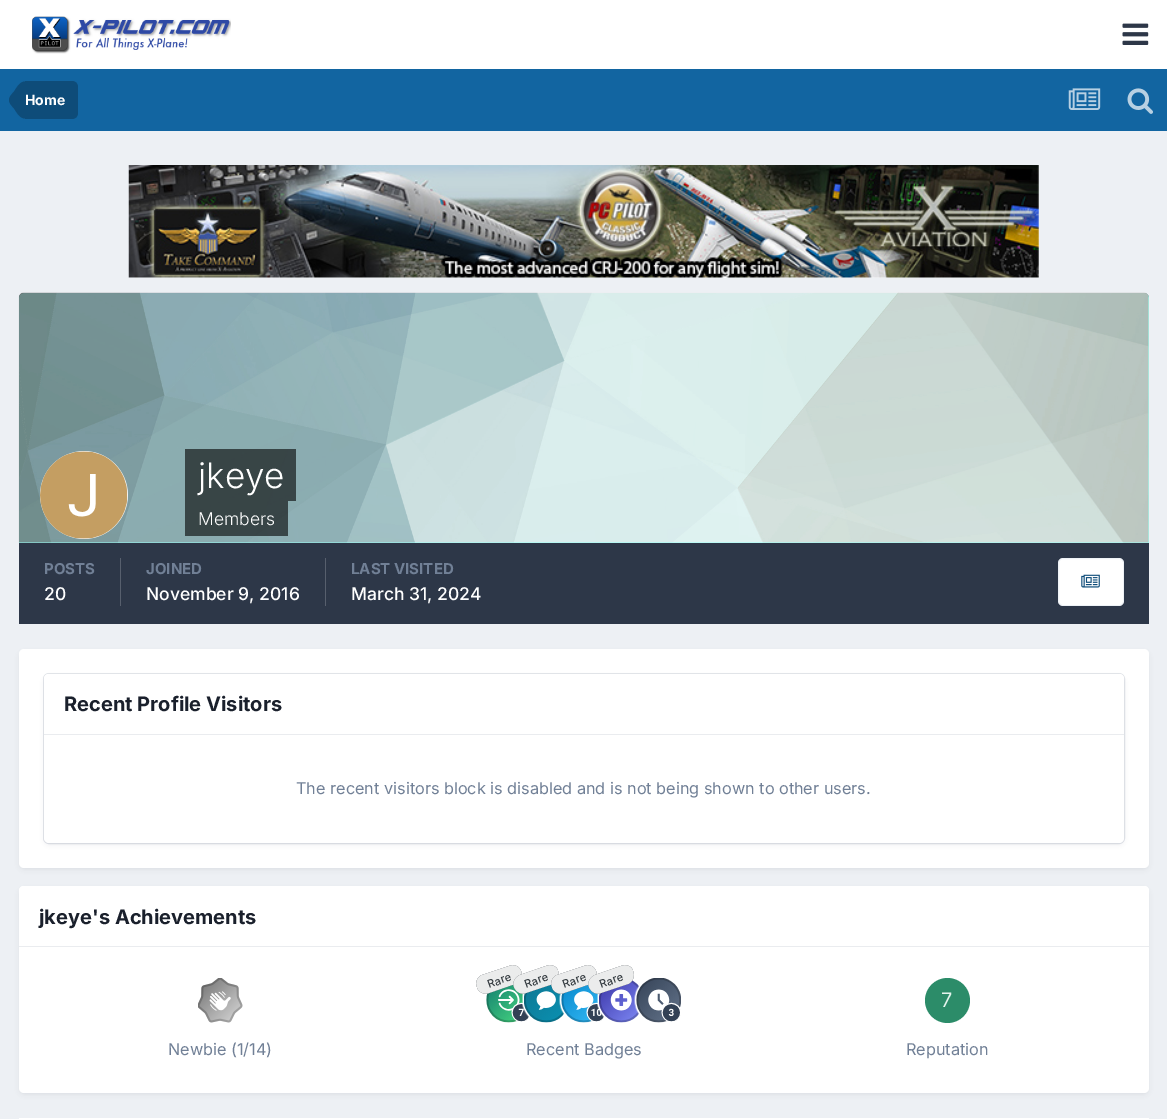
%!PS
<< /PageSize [1167 1119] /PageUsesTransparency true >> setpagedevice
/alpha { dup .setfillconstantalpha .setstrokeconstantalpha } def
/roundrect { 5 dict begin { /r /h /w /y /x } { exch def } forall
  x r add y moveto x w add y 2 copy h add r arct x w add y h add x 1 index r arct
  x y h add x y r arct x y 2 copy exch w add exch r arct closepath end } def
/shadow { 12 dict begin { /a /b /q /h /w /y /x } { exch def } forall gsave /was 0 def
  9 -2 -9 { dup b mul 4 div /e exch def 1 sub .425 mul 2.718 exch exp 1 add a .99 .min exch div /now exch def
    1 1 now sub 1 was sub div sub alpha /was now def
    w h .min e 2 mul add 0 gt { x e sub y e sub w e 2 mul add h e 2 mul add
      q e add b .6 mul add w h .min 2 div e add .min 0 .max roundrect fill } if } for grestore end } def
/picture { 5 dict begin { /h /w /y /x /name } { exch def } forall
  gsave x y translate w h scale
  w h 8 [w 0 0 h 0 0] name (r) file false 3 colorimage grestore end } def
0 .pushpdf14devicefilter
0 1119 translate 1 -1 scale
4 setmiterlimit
0.929 0.941 0.957 setrgbcolor
0 0 1167 1119 rectfill
1 setgray
0 0 1167 69 rectfill
(img1.rgb) 32 16 199 38 picture
(img2.rgb) 1122 23 27 22 picture
0.071 0.396 0.631 setrgbcolor
0 69 1167 62 rectfill
0.055 0.298 0.475 setrgbcolor
newpath 25 81 moveto 72 81 lineto 75.5 81 78 83.5 78 87 curveto 78 113 lineto 78 116.5 75.5 119 72 119 curveto 25 119 lineto closepath fill
newpath 25 100 moveto 25 118.5 lineto 19.5 118.5 16.5 112 14 108.5 curveto 12 106 9 103.5 9 100 curveto closepath 25 100 moveto 9 100 lineto 9 96.5 12 94 14 91.5 curveto 16.5 88 19.5 81.5 25 81.5 curveto closepath fill
/Inter-Bold [14 0 0 -14 0 0] selectfont
1 setgray
25 105 moveto (Home) show
(img3.rgb) 1068 88 33 22 picture
(img4.rgb) 1127 88 26 26 picture
0.969 0.98 0.988 setrgbcolor
129 165 910 113 rectfill
(img5.rgb) 128 165 911 113 picture
0.6 1 0.973 setrgbcolor
newpath 24 293 moveto 1144 293 lineto 1147 293 1149 295 1149 298 curveto 1149 543 lineto 19 543 lineto 19 298 lineto 19 295 21 293 24 293 curveto closepath fill
(img6.rgb) 18 292 1131 251 picture
1 setgray
newpath 84 495 44 0 360 arc closepath fill
(img7.rgb) 40 451 88 88 picture
0.6 alpha
0 setgray
185 449 111 52 rectfill
/Inter-Light [35 0 0 -35 0 0] selectfont
1 alpha
1 setgray
198 488 moveto (jkeye) show
0.6 alpha
0 setgray
185 501 103 35 rectfill
/Inter-Light [17.5 0 0 -17.5 0 0] selectfont
1 alpha
1 setgray
198 525 moveto (Members) show
0.176 0.216 0.282 setrgbcolor
19 543 1130 81 rectfill
0.341 0.373 0.427 setrgbcolor
120 558 1 48 rectfill
/Inter-Bold [15 0 0 -15 0 0] selectfont
0.443 0.502 0.588 setrgbcolor
44 574 moveto (POSTS) show
/Inter-Medium [17.5 0 0 -17.5 0 0] selectfont
1 setgray
44 600 moveto (20) show
0.341 0.373 0.427 setrgbcolor
325 558 1 48 rectfill
/Inter-Bold [15 0 0 -15 0 0] selectfont
0.443 0.502 0.588 setrgbcolor
146 574 moveto (JOINED) show
/Inter-Medium [17.5 0 0 -17.5 0 0] selectfont
1 setgray
146 600 moveto (November 9, 2016) show
/Inter-Bold [15 0 0 -15 0 0] selectfont
0.443 0.502 0.588 setrgbcolor
351 574 moveto (LAST VISITED) show
/Inter-Medium [17.5 0 0 -17.5 0 0] selectfont
1 setgray
351 600 moveto (March 31, 2024) show
1058 558 66 48 5 roundrect fill
0.07 alpha
0.055 0.298 0.475 setrgbcolor
1058.5 558.5 65 47 4.5 roundrect stroke
1 alpha
(img8.rgb) 1081 574 19 14 picture
0.176 0.216 0.282 setrgbcolor
20 653 1128 216 4 2.5 0.1 shadow
1 setgray
19 649 1130 219 5 roundrect fill
0.176 0.216 0.282 setrgbcolor
45 678 1078 166 4 2.5 0.1 shadow
0.2 alpha
0.443 0.502 0.588 setrgbcolor
43.5 673.5 1081 170 5.5 roundrect stroke
1 alpha
1 setgray
44 674 1080 169 5 roundrect fill
newpath 49 674 moveto 1119 674 lineto 1122 674 1124 676 1124 679 curveto 1124 735 lineto 44 735 lineto 44 679 lineto 44 676 46 674 49 674 curveto closepath fill
0.918 0.925 0.937 setrgbcolor
44 734 1080 1 rectfill
/Inter-Bold [20 0 0 -20 0 0] selectfont
0.102 0.125 0.173 setrgbcolor
64 711 moveto (Recent Profile Visitors) show
/Inter-Regular [16.25 0 0 -16.25 0 0] selectfont
0.443 0.502 0.588 setrgbcolor
296 794 moveto (The recent visitors block is disabled and is not being shown to other users.) show
0.176 0.216 0.282 setrgbcolor
20 890 1128 204 4 2.5 0.1 shadow
1 setgray
19 886 1130 207 5 roundrect fill
newpath 24 886 moveto 1144 886 lineto 1147 886 1149 888 1149 891 curveto 1149 948 lineto 19 948 lineto 19 891 lineto 19 888 21 886 24 886 curveto closepath fill
0.918 0.925 0.937 setrgbcolor
19 946 1130 1 rectfill
/Inter-Bold [20 0 0 -20 0 0] selectfont
0.102 0.125 0.173 setrgbcolor
39 924 moveto (jkeye's Achievements) show
(img9.rgb) 198 978 45 45 picture
/Inter-Regular [16.25 0 0 -16.25 0 0] selectfont
0.443 0.502 0.588 setrgbcolor
168 1055 moveto (Newbie \(1/14\)) show
(img10.rgb) 486 984 45 39 picture
0.208 0.235 0.255 setrgbcolor
newpath 482 975 moveto 509 966 lineto 514 964 519 966 521 971 curveto 523 976 520 982 515 984 curveto 489 993 lineto 484 995 478 992 477 987 curveto 475 983 477 977 482 975 curveto closepath fill
0.9 alpha
1 setgray
newpath 482 975 moveto 509 966 lineto 514 964 519 966 521 971 curveto 523 976 520 982 515 984 curveto 489 993 lineto 484 995 478 992 477 987 curveto 475 983 477 977 482 975 curveto closepath fill
/Inter-Medium [11 0 0 -11 0 0] selectfont
1 alpha
0.208 0.235 0.255 setrgbcolor
gsave 489 988 translate -20 rotate 0 0 moveto (Rare) show grestore
(img11.rgb) 522 984 44 39 picture
newpath 520 975 moveto 546 966 lineto 551 964 557 966 558 971 curveto 560 976 558 982 553 984 curveto 526 993 lineto 521 995 516 992 514 987 curveto 512 983 515 977 520 975 curveto closepath fill
0.9 alpha
1 setgray
newpath 520 975 moveto 546 966 lineto 551 964 557 966 558 971 curveto 560 976 558 982 553 984 curveto 526 993 lineto 521 995 516 992 514 987 curveto 512 983 515 977 520 975 curveto closepath fill
1 alpha
0.208 0.235 0.255 setrgbcolor
gsave 526 988 translate -20 rotate 0 0 moveto (Rare) show grestore
(img12.rgb) 559 984 47 39 picture
newpath 557 975 moveto 584 966 lineto 589 964 594 966 596 971 curveto 598 976 595 982 590 984 curveto 564 993 lineto 559 995 553 992 552 987 curveto 550 983 552 977 557 975 curveto closepath fill
0.9 alpha
1 setgray
newpath 557 975 moveto 584 966 lineto 589 964 594 966 596 971 curveto 598 976 595 982 590 984 curveto 564 993 lineto 559 995 553 992 552 987 curveto 550 983 552 977 557 975 curveto closepath fill
1 alpha
0.208 0.235 0.255 setrgbcolor
gsave 564 988 translate -20 rotate 0 0 moveto (Rare) show grestore
(img13.rgb) 597 978 44 45 picture
newpath 595 975 moveto 621 966 lineto 626 964 632 966 633 971 curveto 635 976 633 982 628 984 curveto 601 993 lineto 596 995 591 992 589 987 curveto 587 983 590 977 595 975 curveto closepath fill
0.9 alpha
1 setgray
newpath 595 975 moveto 621 966 lineto 626 964 632 966 633 971 curveto 635 976 633 982 628 984 curveto 601 993 lineto 596 995 591 992 589 987 curveto 587 983 590 977 595 975 curveto closepath fill
1 alpha
0.208 0.235 0.255 setrgbcolor
gsave 601 988 translate -20 rotate 0 0 moveto (Rare) show grestore
(img14.rgb) 634 978 47 45 picture
/Inter-Regular [16.25 0 0 -16.25 0 0] selectfont
0.443 0.502 0.588 setrgbcolor
526 1055 moveto (Recent Badges) show
0.173 0.549 0.412 setrgbcolor
newpath 947.5 1000.5 22.5 0 360 arc closepath fill
/Inter-Regular [20 0 0 -20 0 0] selectfont
0.89 0.953 0.925 setrgbcolor
941 1007 moveto (7) show
/Inter-Regular [16.25 0 0 -16.25 0 0] selectfont
0.443 0.502 0.588 setrgbcolor
906 1055 moveto (Reputation) show
1 setgray
19 1118 1130 1 rectfill
.poppdf14devicefilter showpage
